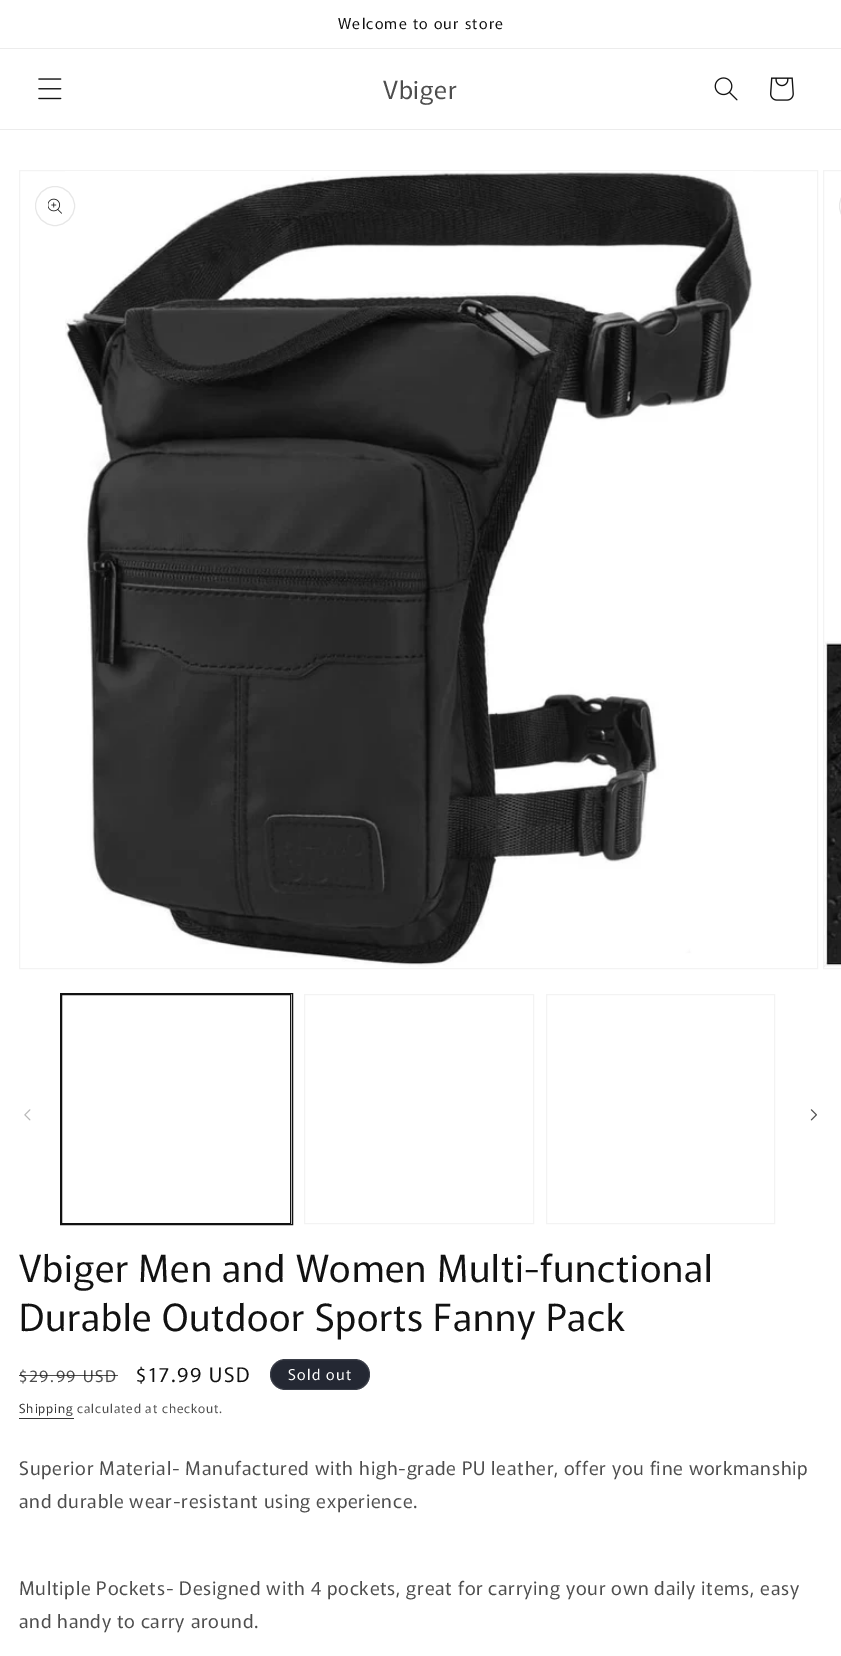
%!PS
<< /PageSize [841 1656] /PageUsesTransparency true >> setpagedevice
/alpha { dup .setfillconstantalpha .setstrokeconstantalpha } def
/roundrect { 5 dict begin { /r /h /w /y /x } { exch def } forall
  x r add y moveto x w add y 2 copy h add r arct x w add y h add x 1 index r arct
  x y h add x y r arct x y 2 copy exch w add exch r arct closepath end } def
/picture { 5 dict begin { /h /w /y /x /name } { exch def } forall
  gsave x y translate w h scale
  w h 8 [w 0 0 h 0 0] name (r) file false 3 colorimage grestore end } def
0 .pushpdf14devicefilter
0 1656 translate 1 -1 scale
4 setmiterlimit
1 setgray
0 0 841 1656 rectfill
0.925 setgray
0 48 841 1 rectfill
/Murecho-Regular [15 0 0 -15 0 0] selectfont
0.071 setgray
338 29 moveto 1.25 0 (Welcome to our store) ashow
0.925 setgray
0 129 841 1 rectfill
(img1.rgb) 38 78 24 22 picture
/Murecho-Regular [25 0 0 -25 0 0] selectfont
0.302 setgray
383 99 moveto 0.75 0 (Vbiger) ashow
(img2.rgb) 714 77 24 24 picture
(img3.rgb) 770 77 24 24 picture
0.953 setgray
19.5 170.5 798 798 rectstroke
(img5.rgb) 65 171 688 796 picture
0.906 setgray
newpath 55 206 19.5 0 360 arc closepath stroke
(img4.rgb) 48 198 14 16 picture
0.953 setgray
823.5 170.5 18 798 rectstroke
0.906 setgray
839.5 186.5 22 39 19.5 roundrect stroke
(img6.rgb) 824 641 17 326 picture
(img7.rgb) 24 1109 7 12 picture
0.071 setgray
60.5 993.5 232 231 rectstroke
61.5 994.5 229 229 rectstroke
0.953 setgray
304.5 994.5 229 229 rectstroke
546.5 994.5 228 229 rectstroke
(img8.rgb) 810 1109 7 12 picture
/Murecho-Regular [37.5 0 0 -37.5 0 0] selectfont
0.071 setgray
19 1282 moveto 0.75 0 (Vbiger Men and Women Multi-functional) ashow
19 1331 moveto 0.75 0 (Durable Outdoor Sports Fanny Pack) ashow
/Murecho-Regular [16.25 0 0 -16.25 0 0] selectfont
0.302 setgray
19 1382 moveto 1.6 0 ($29.99 USD) ashow
0.75 alpha
0.071 setgray
19 1375 99 1 rectfill
/Murecho-Regular [20 0 0 -20 0 0] selectfont
1 alpha
136 1382 moveto 1.6 0 ($17.99 USD) ashow
0.141 0.157 0.2 setrgbcolor
270 1359 100 31 15.5 roundrect fill
0.1 alpha
1 setgray
270.5 1359.5 99 30 15 roundrect stroke
/Murecho-Regular [15 0 0 -15 0 0] selectfont
1 alpha
288 1380 moveto 1.25 0 (Sold out) ashow
/Murecho-Regular [12.5 0 0 -12.5 0 0] selectfont
0.212 setgray
19 1413 moveto 0.9 0 (Shipping) ashow
19 1418 55 1 rectfill
0.302 setgray
77 1413 moveto 0.9 0 (calculated at checkout.) ashow
/Murecho-Regular [18.75 0 0 -18.75 0 0] selectfont
19 1475 moveto 0.75 0 (Superior Material- Manufactured with high-grade PU leather, offer you fine workmanship) ashow
19 1508 moveto 0.75 0 (and durable wear-resistant using experience.) ashow
19 1595 moveto 0.75 0 (Multiple Pockets- Designed with 4 pockets, great for carrying your own daily items, easy) ashow
19 1628 moveto 0.75 0 (and handy to carry around.) ashow
.poppdf14devicefilter showpage
